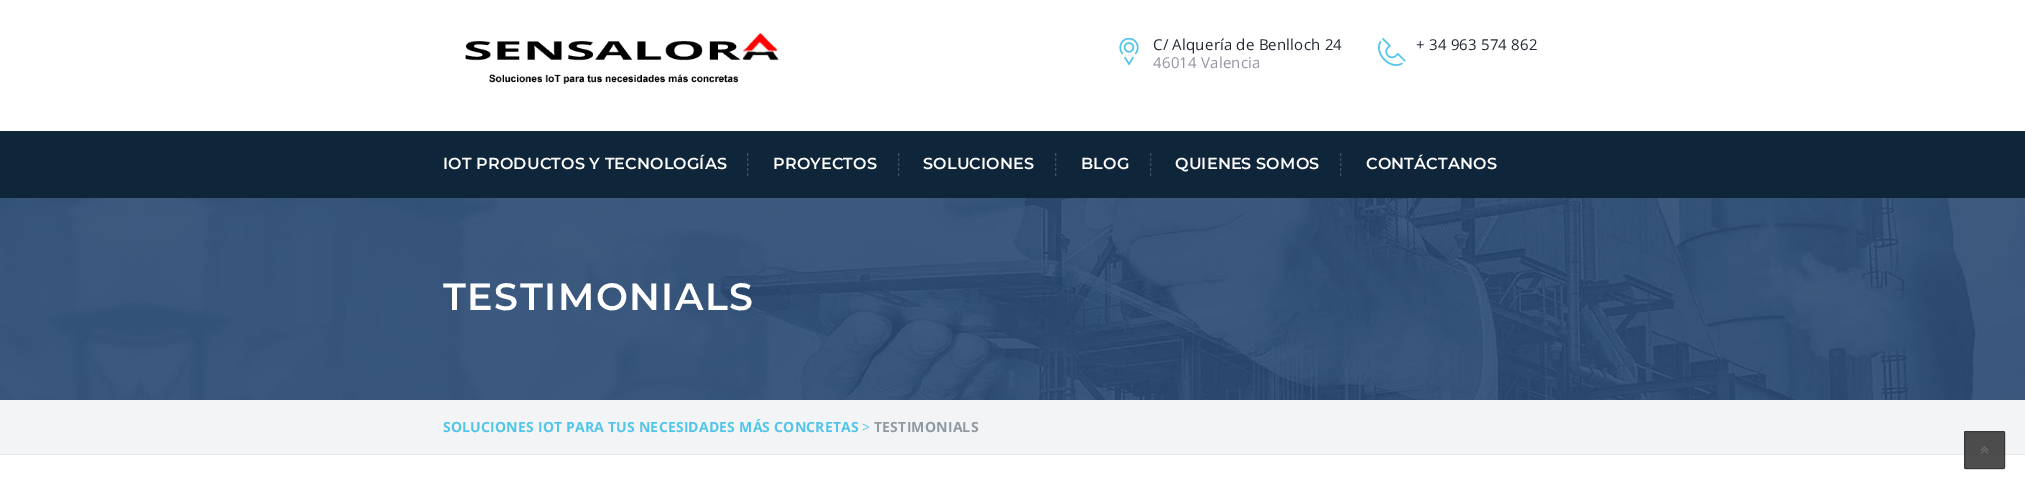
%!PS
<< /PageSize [2025 490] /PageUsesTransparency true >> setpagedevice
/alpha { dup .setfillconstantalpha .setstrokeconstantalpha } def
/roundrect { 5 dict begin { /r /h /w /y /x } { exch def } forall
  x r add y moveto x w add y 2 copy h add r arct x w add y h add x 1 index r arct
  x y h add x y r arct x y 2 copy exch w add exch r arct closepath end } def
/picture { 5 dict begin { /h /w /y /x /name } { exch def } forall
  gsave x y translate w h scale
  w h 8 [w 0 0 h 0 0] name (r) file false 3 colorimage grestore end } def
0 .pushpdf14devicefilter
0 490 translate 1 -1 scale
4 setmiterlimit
1 setgray
0 0 2025 490 rectfill
(img1.rgb) 465 33 314 51 picture
(img2.rgb) 1119 38 20 28 picture
/OpenSans-Regular [15 0 0 -15 0 0] selectfont
0.137 0.161 0.196 setrgbcolor
1153 50 moveto 0.2 0 (C/ Alquería de Benlloch 24) ashow
0.588 0.573 0.627 setrgbcolor
1153 68 moveto 0.2 0 (46014 Valencia) ashow
(img3.rgb) 1378 38 28 28 picture
0.137 0.161 0.196 setrgbcolor
1416 50 moveto 0.2 0 (+ 34 963 574 862) ashow
0.059 0.149 0.227 setrgbcolor
0 131 2025 67 rectfill
0.247 0.322 0.384 setrgbcolor
[3 2] 0 setdash
newpath 747.5 153 moveto 747.5 176 lineto stroke
/Montserrat-SemiBold [16 0 0 -16 0 0] selectfont
1 setgray
443 169 moveto 0.15 0 (IOT PRODUCTOS Y TECNOLOGÍAS) ashow
0.247 0.322 0.384 setrgbcolor
newpath 898.5 153 moveto 898.5 176 lineto stroke
1 setgray
773 169 moveto 0.15 0 (PROYECTOS) ashow
0.247 0.322 0.384 setrgbcolor
newpath 1055.5 153 moveto 1055.5 176 lineto stroke
1 setgray
923 169 moveto 0.15 0 (SOLUCIONES) ashow
0.247 0.322 0.384 setrgbcolor
newpath 1150.5 153 moveto 1150.5 176 lineto stroke
1 setgray
1081 169 moveto 0.15 0 (BLOG) ashow
0.247 0.322 0.384 setrgbcolor
newpath 1340.5 153 moveto 1340.5 176 lineto stroke
1 setgray
1175 169 moveto 0.15 0 (QUIENES SOMOS) ashow
1366 169 moveto 0.15 0 (CONTÁCTANOS) ashow
(img4.rgb) 0 198 2025 202 picture
/Montserrat-SemiBold [38 0 0 -38 0 0] selectfont
443 310 moveto 1.5 0 (TESTIMONIALS) ashow
0.949 0.957 0.965 setrgbcolor
0 400 2025 54 rectfill
0.902 0.91 0.914 setrgbcolor
0 454 2025 1 rectfill
/OpenSans-Bold [14 0 0 -14 0 0] selectfont
0.318 0.773 0.914 setrgbcolor
443 432 moveto 0.2 0 (SOLUCIONES IOT PARA TUS NECESIDADES MÁS CONCRETAS) ashow
/OpenSans-Regular [14 0 0 -14 0 0] selectfont
862 432 moveto 0.2 0 (>) ashow
/OpenSans-Bold [14 0 0 -14 0 0] selectfont
0.565 0.604 0.635 setrgbcolor
874 432 moveto 0.2 0 (TESTIMONIALS) ashow
0.8 alpha
0.133 setgray
1964 431 41 38 2 roundrect fill
0.2 setgray
[] 0 setdash
1964.5 431.5 40 37 1.5 roundrect stroke
1 alpha
(img5.rgb) 1980 446 9 8 picture
.poppdf14devicefilter showpage
